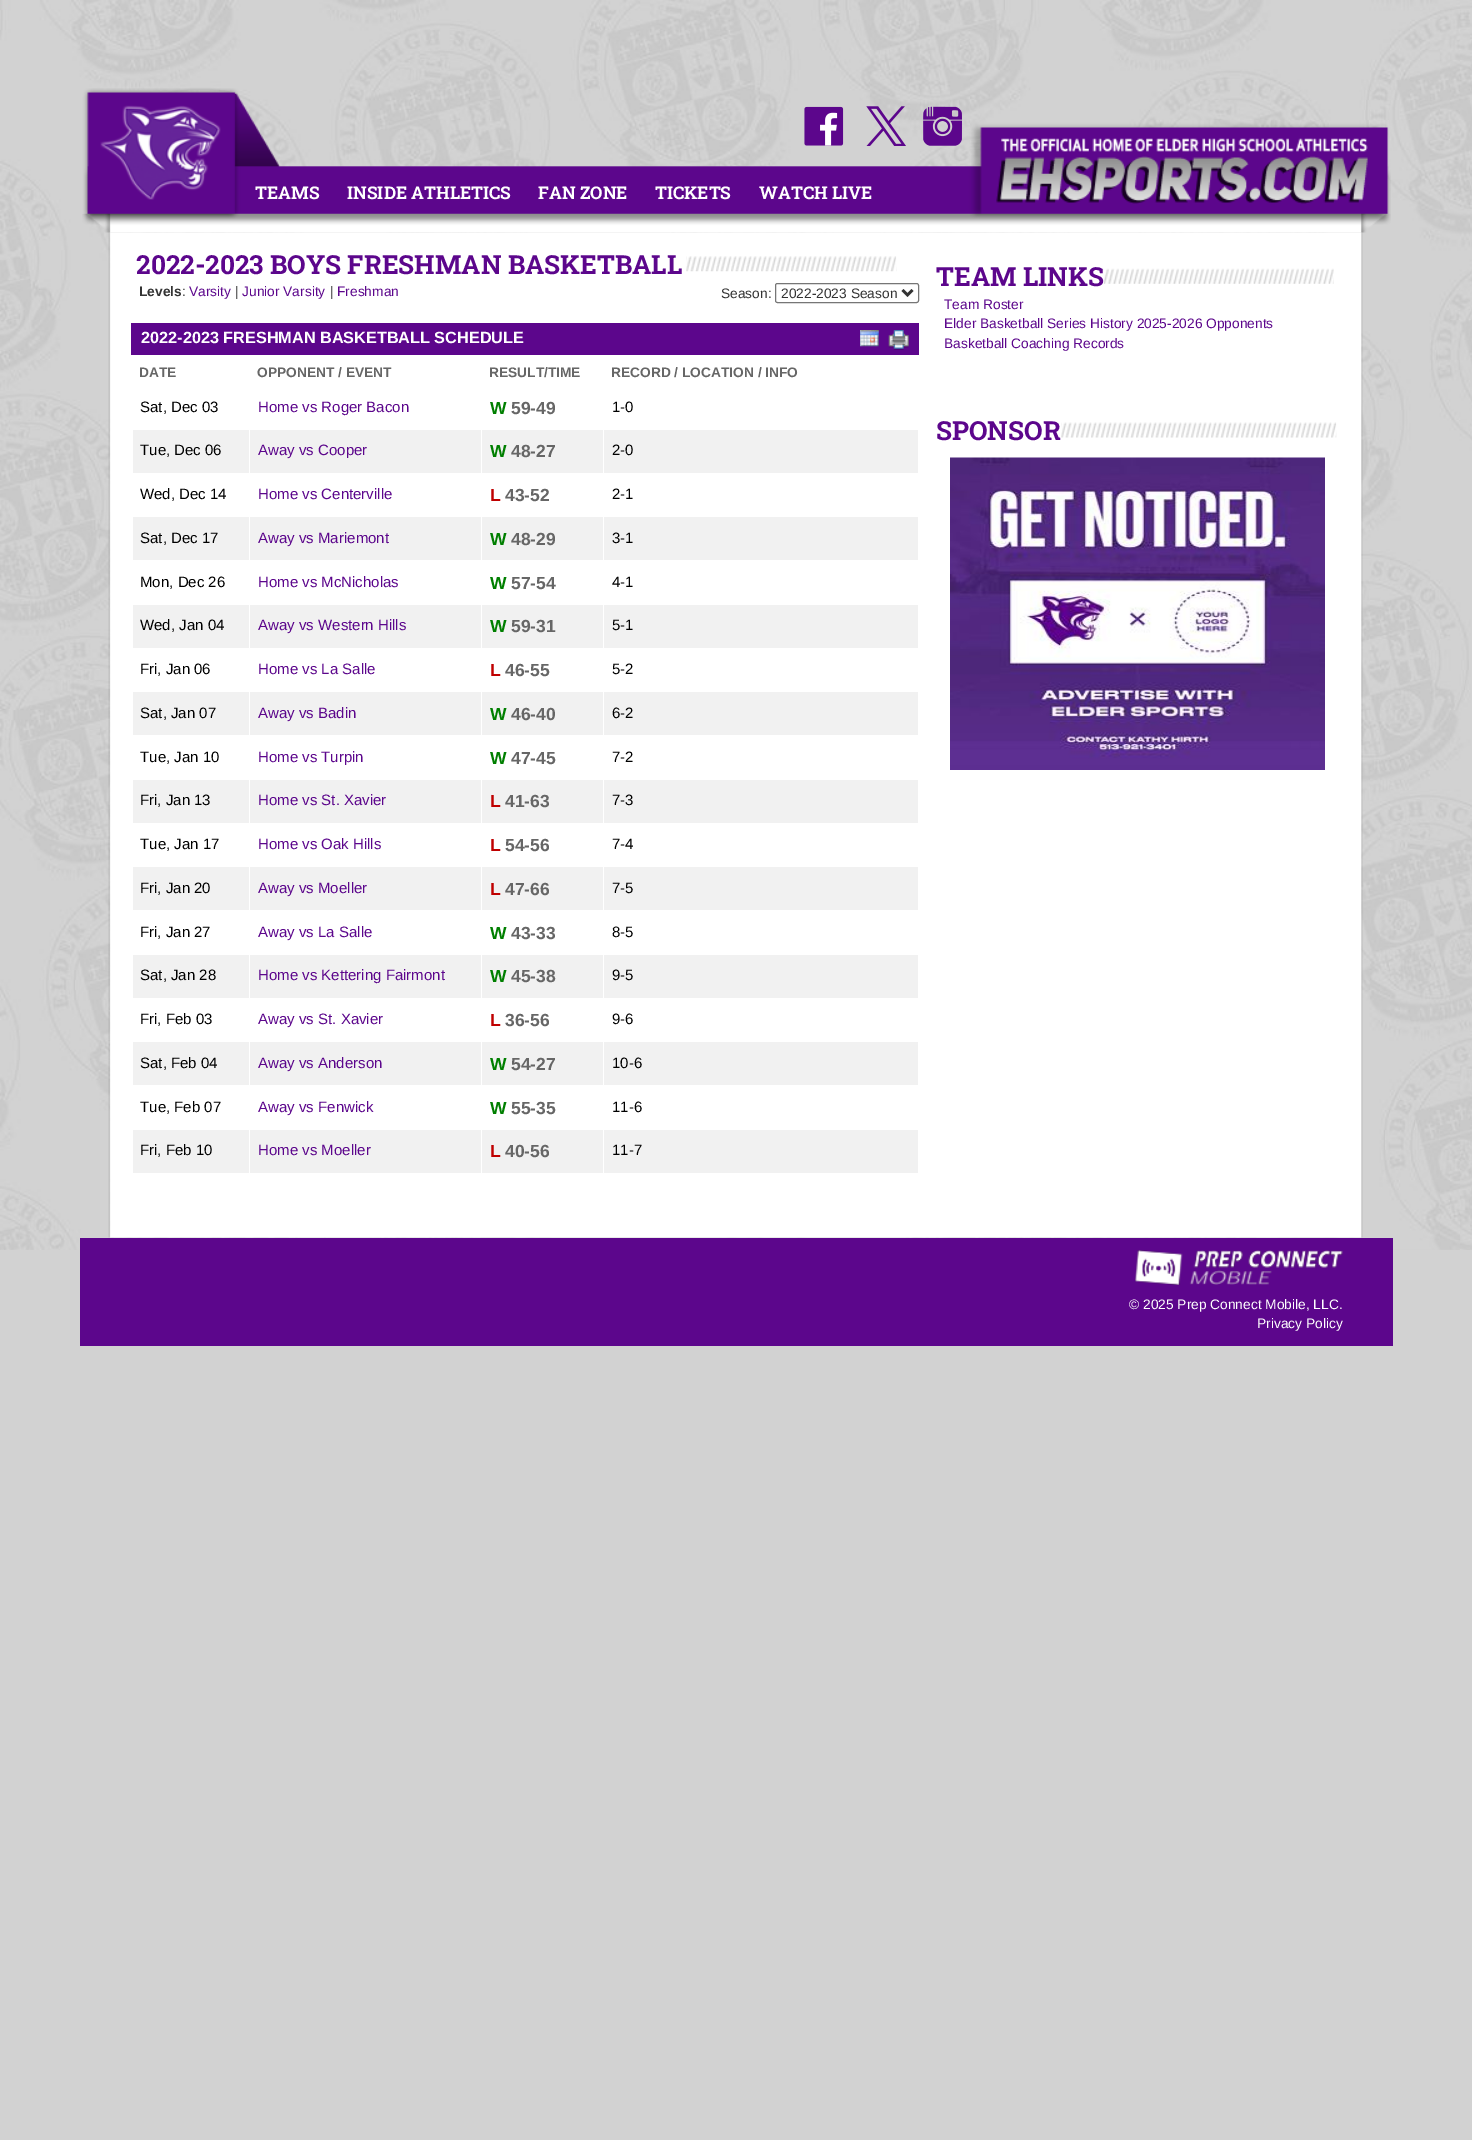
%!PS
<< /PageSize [1472 2140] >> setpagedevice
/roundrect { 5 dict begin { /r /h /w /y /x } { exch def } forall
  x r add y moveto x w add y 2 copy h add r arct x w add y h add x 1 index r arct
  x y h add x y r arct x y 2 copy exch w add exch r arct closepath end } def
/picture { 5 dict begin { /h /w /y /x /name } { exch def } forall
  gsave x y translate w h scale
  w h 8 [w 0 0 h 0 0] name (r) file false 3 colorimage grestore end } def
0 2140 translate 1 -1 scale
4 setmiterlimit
0.824 setgray
0 0 1472 2140 rectfill
(img1.rgb) 0 0 1472 1250 picture
(img2.rgb) 82 88 1309 145 picture
(img3.rgb) 100 105 121 95 picture
(img4.rgb) 804 106 40 40 picture
(img5.rgb) 866 106 40 40 picture
(img6.rgb) 923 106 39 40 picture
/RobotoSlab-Bold [17.5 0 0 -17.5 0 0] selectfont
1 setgray
255 199 moveto (TEAMS) show
347 199 moveto (INSIDE ATHLETICS) show
538 199 moveto (FAN ZONE) show
655 199 moveto (TICKETS) show
759 199 moveto (WATCH LIVE) show
(img7.rgb) 996 138 372 66 picture
(img8.rgb) 108 232 1255 1006 picture
/RobotoSlab-Bold [26.25 0 0 -26.25 0 0] selectfont
0.361 0.024 0.549 setrgbcolor
136 274 moveto (2022-2023 BOYS FRESHMAN BASKETBALL) show
(img9.rgb) 686 256 211 16 picture
/LiberationSans-Bold [13.75 0 0 -13.75 0 0] selectfont
0.2 setgray
139 296 moveto (Levels) show
/LiberationSans-Regular [13.75 0 0 -13.75 0 0] selectfont
182 296 moveto (:) show
0.361 0.024 0.549 setrgbcolor
189 296 moveto (Varsity) show
0.2 setgray
235 296 moveto (|) show
0.361 0.024 0.549 setrgbcolor
242 296 moveto (Junior Varsity) show
0.2 setgray
330 296 moveto (|) show
0.361 0.024 0.549 setrgbcolor
337 296 moveto (Freshman) show
0.2 setgray
721 298 moveto (Season:) show
0.463 setgray
775.5 283.5 143 19 2 roundrect stroke
0.2 setgray
2.5 setlinewidth
newpath 902.5 290 moveto 907.5 295 lineto 912.5 290 lineto stroke
781 298 moveto (2022-2023 Season) show
0.361 0.024 0.549 setrgbcolor
131 323 788 32 rectfill
/LiberationSans-Bold [16.25 0 0 -16.25 0 0] selectfont
1 setgray
141 343 moveto (2022-2023 FRESHMAN BASKETBALL SCHEDULE) show
(img10.rgb) 860 330 19 17 picture
(img11.rgb) 888 330 21 20 picture
/LiberationSans-Bold [13.75 0 0 -13.75 0 0] selectfont
0.4 setgray
139 377 moveto (DATE) show
257 377 moveto (OPPONENT / EVENT) show
489 377 moveto (RESULT/TIME) show
611 377 moveto (RECORD / LOCATION / INFO) show
/LiberationSans-Regular [15 0 0 -15 0 0] selectfont
0 setgray
140 412 moveto (Sat, Dec 03) show
0.361 0.024 0.549 setrgbcolor
258 412 moveto (Home vs Roger Bacon) show
/LiberationSans-Bold [17.5 0 0 -17.5 0 0] selectfont
0 0.498 0 setrgbcolor
490 414 moveto (W) show
0.4 setgray
511 414 moveto (59-49) show
/LiberationSans-Regular [15 0 0 -15 0 0] selectfont
0 setgray
612 412 moveto (1-0) show
0.945 setgray
133 430 785 43 rectfill
0 setgray
140 455 moveto (Tue, Dec 06) show
1 setgray
249 429 1 45 rectfill
0.361 0.024 0.549 setrgbcolor
258 455 moveto (Away vs Cooper) show
1 setgray
481 429 1 45 rectfill
/LiberationSans-Bold [17.5 0 0 -17.5 0 0] selectfont
0 0.498 0 setrgbcolor
490 457 moveto (W) show
0.4 setgray
511 457 moveto (48-27) show
1 setgray
603 429 1 45 rectfill
/LiberationSans-Regular [15 0 0 -15 0 0] selectfont
0 setgray
612 455 moveto (2-0) show
140 499 moveto (Wed, Dec 14) show
0.361 0.024 0.549 setrgbcolor
258 499 moveto (Home vs Centerville) show
/LiberationSans-Bold [17.5 0 0 -17.5 0 0] selectfont
0.749 0 0 setrgbcolor
490 501 moveto (L) show
0.4 setgray
505 501 moveto (43-52) show
/LiberationSans-Regular [15 0 0 -15 0 0] selectfont
0 setgray
612 499 moveto (2-1) show
0.945 setgray
133 517 785 43 rectfill
0 setgray
140 543 moveto (Sat, Dec 17) show
1 setgray
249 516 1 45 rectfill
0.361 0.024 0.549 setrgbcolor
258 543 moveto (Away vs Mariemont) show
1 setgray
481 516 1 45 rectfill
/LiberationSans-Bold [17.5 0 0 -17.5 0 0] selectfont
0 0.498 0 setrgbcolor
490 545 moveto (W) show
0.4 setgray
511 545 moveto (48-29) show
1 setgray
603 516 1 45 rectfill
/LiberationSans-Regular [15 0 0 -15 0 0] selectfont
0 setgray
612 543 moveto (3-1) show
140 587 moveto (Mon, Dec 26) show
0.361 0.024 0.549 setrgbcolor
258 587 moveto (Home vs McNicholas) show
/LiberationSans-Bold [17.5 0 0 -17.5 0 0] selectfont
0 0.498 0 setrgbcolor
490 589 moveto (W) show
0.4 setgray
511 589 moveto (57-54) show
/LiberationSans-Regular [15 0 0 -15 0 0] selectfont
0 setgray
612 587 moveto (4-1) show
0.945 setgray
133 605 785 43 rectfill
0 setgray
140 630 moveto (Wed, Jan 04) show
1 setgray
249 604 1 45 rectfill
0.361 0.024 0.549 setrgbcolor
258 630 moveto (Away vs Western Hills) show
1 setgray
481 604 1 45 rectfill
/LiberationSans-Bold [17.5 0 0 -17.5 0 0] selectfont
0 0.498 0 setrgbcolor
490 632 moveto (W) show
0.4 setgray
511 632 moveto (59-31) show
1 setgray
603 604 1 45 rectfill
/LiberationSans-Regular [15 0 0 -15 0 0] selectfont
0 setgray
612 630 moveto (5-1) show
140 674 moveto (Fri, Jan 06) show
0.361 0.024 0.549 setrgbcolor
258 674 moveto (Home vs La Salle) show
/LiberationSans-Bold [17.5 0 0 -17.5 0 0] selectfont
0.749 0 0 setrgbcolor
490 676 moveto (L) show
0.4 setgray
505 676 moveto (46-55) show
/LiberationSans-Regular [15 0 0 -15 0 0] selectfont
0 setgray
612 674 moveto (5-2) show
0.945 setgray
133 692 785 43 rectfill
0 setgray
140 718 moveto (Sat, Jan 07) show
1 setgray
249 691 1 45 rectfill
0.361 0.024 0.549 setrgbcolor
258 718 moveto (Away vs Badin) show
1 setgray
481 691 1 45 rectfill
/LiberationSans-Bold [17.5 0 0 -17.5 0 0] selectfont
0 0.498 0 setrgbcolor
490 720 moveto (W) show
0.4 setgray
511 720 moveto (46-40) show
1 setgray
603 691 1 45 rectfill
/LiberationSans-Regular [15 0 0 -15 0 0] selectfont
0 setgray
612 718 moveto (6-2) show
140 762 moveto (Tue, Jan 10) show
0.361 0.024 0.549 setrgbcolor
258 762 moveto (Home vs Turpin) show
/LiberationSans-Bold [17.5 0 0 -17.5 0 0] selectfont
0 0.498 0 setrgbcolor
490 764 moveto (W) show
0.4 setgray
511 764 moveto (47-45) show
/LiberationSans-Regular [15 0 0 -15 0 0] selectfont
0 setgray
612 762 moveto (7-2) show
0.945 setgray
133 780 785 43 rectfill
0 setgray
140 805 moveto (Fri, Jan 13) show
1 setgray
249 779 1 45 rectfill
0.361 0.024 0.549 setrgbcolor
258 805 moveto (Home vs St. Xavier) show
1 setgray
481 779 1 45 rectfill
/LiberationSans-Bold [17.5 0 0 -17.5 0 0] selectfont
0.749 0 0 setrgbcolor
490 807 moveto (L) show
0.4 setgray
505 807 moveto (41-63) show
1 setgray
603 779 1 45 rectfill
/LiberationSans-Regular [15 0 0 -15 0 0] selectfont
0 setgray
612 805 moveto (7-3) show
140 849 moveto (Tue, Jan 17) show
0.361 0.024 0.549 setrgbcolor
258 849 moveto (Home vs Oak Hills) show
/LiberationSans-Bold [17.5 0 0 -17.5 0 0] selectfont
0.749 0 0 setrgbcolor
490 851 moveto (L) show
0.4 setgray
505 851 moveto (54-56) show
/LiberationSans-Regular [15 0 0 -15 0 0] selectfont
0 setgray
612 849 moveto (7-4) show
0.945 setgray
133 867 785 43 rectfill
0 setgray
140 893 moveto (Fri, Jan 20) show
1 setgray
249 866 1 45 rectfill
0.361 0.024 0.549 setrgbcolor
258 893 moveto (Away vs Moeller) show
1 setgray
481 866 1 45 rectfill
/LiberationSans-Bold [17.5 0 0 -17.5 0 0] selectfont
0.749 0 0 setrgbcolor
490 895 moveto (L) show
0.4 setgray
505 895 moveto (47-66) show
1 setgray
603 866 1 45 rectfill
/LiberationSans-Regular [15 0 0 -15 0 0] selectfont
0 setgray
612 893 moveto (7-5) show
140 937 moveto (Fri, Jan 27) show
0.361 0.024 0.549 setrgbcolor
258 937 moveto (Away vs La Salle) show
/LiberationSans-Bold [17.5 0 0 -17.5 0 0] selectfont
0 0.498 0 setrgbcolor
490 939 moveto (W) show
0.4 setgray
511 939 moveto (43-33) show
/LiberationSans-Regular [15 0 0 -15 0 0] selectfont
0 setgray
612 937 moveto (8-5) show
0.945 setgray
133 955 785 43 rectfill
0 setgray
140 980 moveto (Sat, Jan 28) show
1 setgray
249 954 1 45 rectfill
0.361 0.024 0.549 setrgbcolor
258 980 moveto (Home vs Kettering Fairmont) show
1 setgray
481 954 1 45 rectfill
/LiberationSans-Bold [17.5 0 0 -17.5 0 0] selectfont
0 0.498 0 setrgbcolor
490 982 moveto (W) show
0.4 setgray
511 982 moveto (45-38) show
1 setgray
603 954 1 45 rectfill
/LiberationSans-Regular [15 0 0 -15 0 0] selectfont
0 setgray
612 980 moveto (9-5) show
140 1024 moveto (Fri, Feb 03) show
0.361 0.024 0.549 setrgbcolor
258 1024 moveto (Away vs St. Xavier) show
/LiberationSans-Bold [17.5 0 0 -17.5 0 0] selectfont
0.749 0 0 setrgbcolor
490 1026 moveto (L) show
0.4 setgray
505 1026 moveto (36-56) show
/LiberationSans-Regular [15 0 0 -15 0 0] selectfont
0 setgray
612 1024 moveto (9-6) show
0.945 setgray
133 1042 785 43 rectfill
0 setgray
140 1068 moveto (Sat, Feb 04) show
1 setgray
249 1041 1 45 rectfill
0.361 0.024 0.549 setrgbcolor
258 1068 moveto (Away vs Anderson) show
1 setgray
481 1041 1 45 rectfill
/LiberationSans-Bold [17.5 0 0 -17.5 0 0] selectfont
0 0.498 0 setrgbcolor
490 1070 moveto (W) show
0.4 setgray
511 1070 moveto (54-27) show
1 setgray
603 1041 1 45 rectfill
/LiberationSans-Regular [15 0 0 -15 0 0] selectfont
0 setgray
612 1068 moveto (10-6) show
140 1112 moveto (Tue, Feb 07) show
0.361 0.024 0.549 setrgbcolor
258 1112 moveto (Away vs Fenwick) show
/LiberationSans-Bold [17.5 0 0 -17.5 0 0] selectfont
0 0.498 0 setrgbcolor
490 1114 moveto (W) show
0.4 setgray
511 1114 moveto (55-35) show
/LiberationSans-Regular [15 0 0 -15 0 0] selectfont
0 setgray
612 1112 moveto (11-6) show
0.945 setgray
133 1130 785 43 rectfill
0 setgray
140 1155 moveto (Fri, Feb 10) show
1 setgray
249 1129 1 45 rectfill
0.361 0.024 0.549 setrgbcolor
258 1155 moveto (Home vs Moeller) show
1 setgray
481 1129 1 45 rectfill
/LiberationSans-Bold [17.5 0 0 -17.5 0 0] selectfont
0.749 0 0 setrgbcolor
490 1157 moveto (L) show
0.4 setgray
505 1157 moveto (40-56) show
1 setgray
603 1129 1 45 rectfill
/LiberationSans-Regular [15 0 0 -15 0 0] selectfont
0 setgray
612 1155 moveto (11-7) show
/RobotoSlab-Bold [26.25 0 0 -26.25 0 0] selectfont
0.361 0.024 0.549 setrgbcolor
936 286 moveto (TEAM LINKS) show
(img12.rgb) 1103 268 231 16 picture
/LiberationSans-Regular [13.75 0 0 -13.75 0 0] selectfont
944 309 moveto (Team Roster) show
944 328 moveto (Elder Basketball Series History 2025-2026 Opponents) show
944 348 moveto (Basketball Coaching Records) show
/RobotoSlab-Bold [26.25 0 0 -26.25 0 0] selectfont
936 440 moveto (SPONSOR) show
(img13.rgb) 1061 422 276 16 picture
(img14.rgb) 950 457 375 313 picture
80 1238 1313 108 rectfill
(img15.rgb) 1135 1250 208 35 picture
/LiberationSans-Regular [13.75 0 0 -13.75 0 0] selectfont
1 setgray
1129 1309 moveto (© 2025 Prep Connect Mobile, LLC.) show
1257 1328 moveto (Privacy Policy) show
showpage
